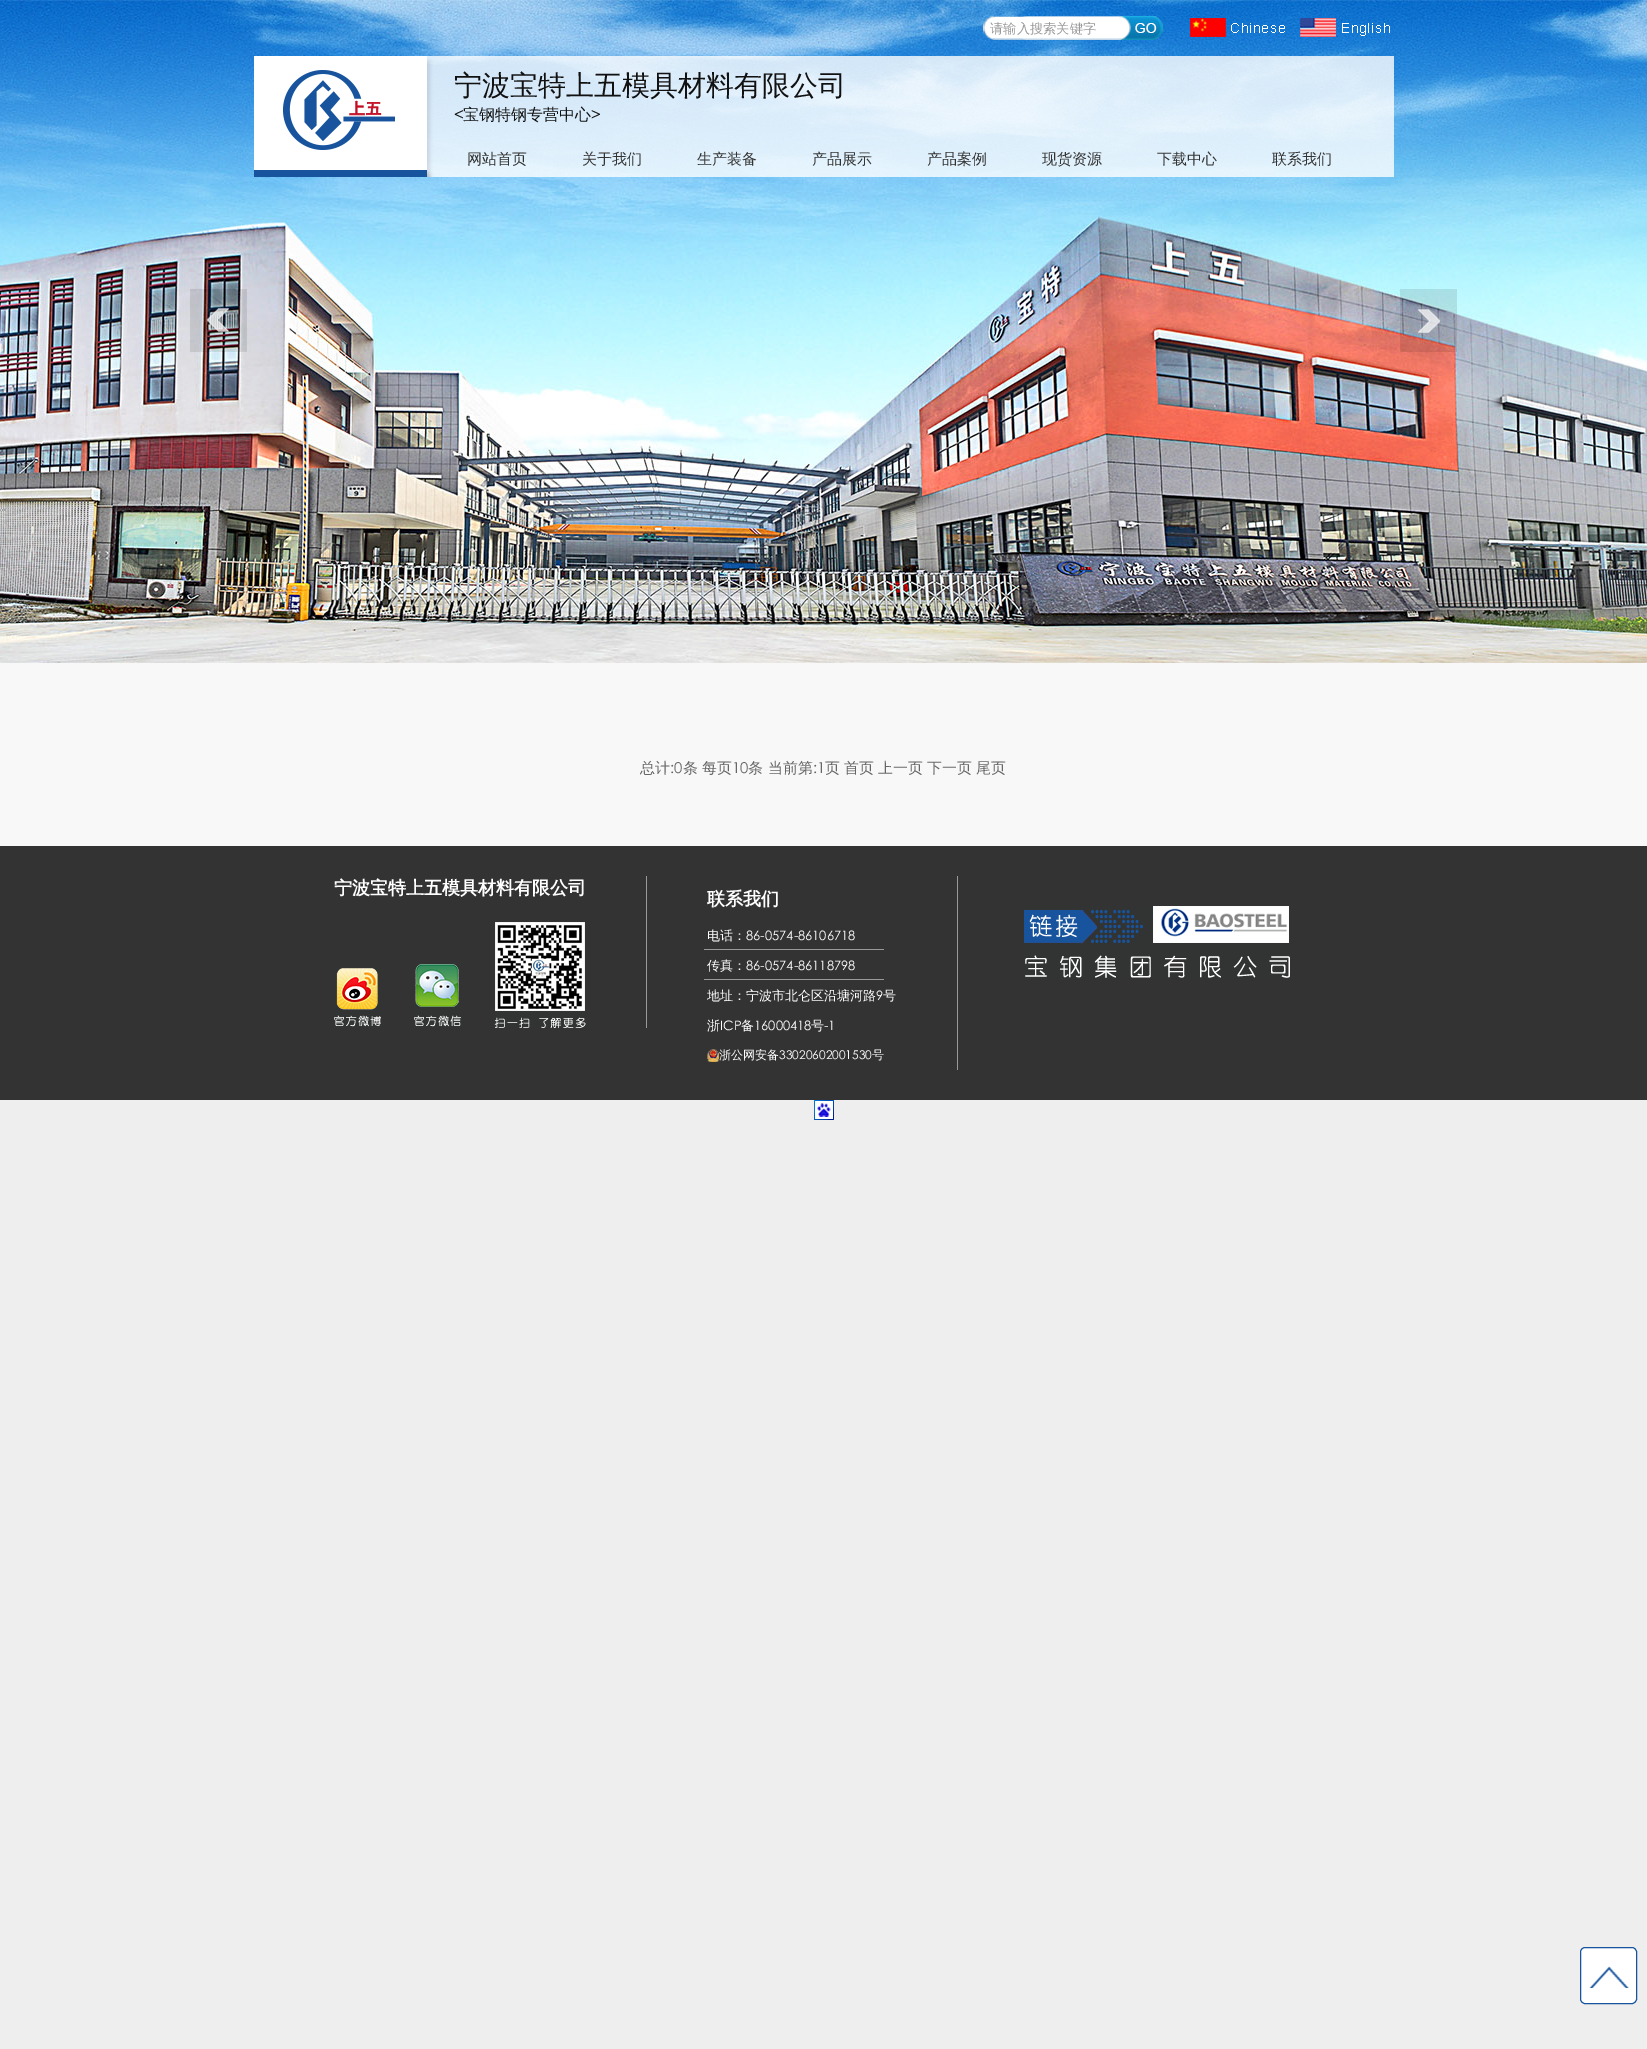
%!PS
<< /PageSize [1647 2049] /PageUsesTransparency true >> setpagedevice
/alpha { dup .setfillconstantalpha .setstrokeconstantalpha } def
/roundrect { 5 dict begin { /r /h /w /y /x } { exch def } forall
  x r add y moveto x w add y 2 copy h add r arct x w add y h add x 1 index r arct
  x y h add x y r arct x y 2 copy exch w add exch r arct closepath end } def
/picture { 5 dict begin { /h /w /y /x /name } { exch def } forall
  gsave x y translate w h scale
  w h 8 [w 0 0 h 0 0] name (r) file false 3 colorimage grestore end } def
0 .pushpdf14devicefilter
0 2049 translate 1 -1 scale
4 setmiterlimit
0.933 setgray
0 0 1647 2049 rectfill
(img1.rgb) 0 0 1647 663 picture
(img2.rgb) 190 289 57 63 picture
(img3.rgb) 1400 289 57 63 picture
(img4.rgb) 983 16 181 24 picture
/WenQuanYiZenHei-Medium [13.25 0 0 -13.25 0 0] selectfont
0.6 setgray
990 33 moveto (请输入搜索关键字) show
(img5.rgb) 1190 18 95 19 picture
(img6.rgb) 1300 18 90 19 picture
(img7.rgb) 254 56 186 121 picture
0.8 alpha
1 setgray
440 56 954 121 rectfill
/WenQuanYiZenHei-Medium [28 0 0 -28 0 0] selectfont
1 alpha
0.067 setgray
454 95 moveto (宁波宝特上五模具材料有限公司) show
/CenturyGothic-Regular [16 0 0 -16 0 0] selectfont
454 120 moveto (<) show
/WenQuanYiZenHei-Medium [16 0 0 -16 0 0] selectfont
463 120 moveto (宝钢特钢专营中心) show
/CenturyGothic-Regular [16 0 0 -16 0 0] selectfont
591 120 moveto (>) show
/WenQuanYiZenHei-Medium [15 0 0 -15 0 0] selectfont
0.2 setgray
467 164 moveto (网站首页) show
582 164 moveto (关于我们) show
697 164 moveto (生产装备) show
812 164 moveto (产品展示) show
927 164 moveto (产品案例) show
1042 164 moveto (现货资源) show
1157 164 moveto (下载中心) show
1272 164 moveto (联系我们) show
0.973 setgray
0 663 1647 183 rectfill
0.4 setgray
640 773 moveto (总计) show
/CenturyGothic-Regular [15 0 0 -15 0 0] selectfont
670 773 moveto (:0) show
/WenQuanYiZenHei-Medium [15 0 0 -15 0 0] selectfont
683 773 moveto -0.5 0 32 (条 每页) widthshow
/CenturyGothic-Regular [15 0 0 -15 0 0] selectfont
732 773 moveto (10) show
/WenQuanYiZenHei-Medium [15 0 0 -15 0 0] selectfont
748 773 moveto (条) show
768 773 moveto (当前第) show
/CenturyGothic-Regular [15 0 0 -15 0 0] selectfont
813 773 moveto (:1) show
/WenQuanYiZenHei-Medium [15 0 0 -15 0 0] selectfont
825 773 moveto (页) show
844 773 moveto -0.5 0 32 (首页 上一页 下一页 尾页) widthshow
0.2 setgray
0 846 1647 254 rectfill
0.6 setgray
646 876 1 152 rectfill
/WenQuanYiZenHei-Bold [18 0 0 -18 0 0] selectfont
1 setgray
334 894 moveto (宁波宝特上五模具材料有限公司) show
(img8.rgb) 334 968 47 59 picture
(img9.rgb) 414 964 47 63 picture
(img10.rgb) 494 922 92 106 picture
0.6 setgray
957 876 1 194 rectfill
1 setgray
707 905 moveto (联系我们) show
/WenQuanYiZenHei-Medium [13 0 0 -13 0 0] selectfont
707 940 moveto (电话：) show
/CenturyGothic-Regular [13 0 0 -13 0 0] selectfont
746 940 moveto (86-0574-86106718) show
0.6 setgray
704 949 180 1 rectfill
/WenQuanYiZenHei-Medium [13 0 0 -13 0 0] selectfont
1 setgray
707 970 moveto (传真：) show
/CenturyGothic-Regular [13 0 0 -13 0 0] selectfont
746 970 moveto (86-0574-86118798) show
0.6 setgray
704 979 180 1 rectfill
/WenQuanYiZenHei-Medium [13 0 0 -13 0 0] selectfont
1 setgray
707 1000 moveto (地址：宁波市北仑区沿塘河路) show
/CenturyGothic-Regular [13 0 0 -13 0 0] selectfont
876 1000 moveto (9) show
/WenQuanYiZenHei-Medium [13 0 0 -13 0 0] selectfont
883 1000 moveto (号) show
707 1030 moveto (浙) show
/CenturyGothic-Regular [13 0 0 -13 0 0] selectfont
720 1030 moveto (ICP) show
/WenQuanYiZenHei-Medium [13 0 0 -13 0 0] selectfont
741 1030 moveto (备) show
/CenturyGothic-Regular [13 0 0 -13 0 0] selectfont
754 1030 moveto (16000418) show
/WenQuanYiZenHei-Medium [13 0 0 -13 0 0] selectfont
811 1030 moveto (号) show
/CenturyGothic-Regular [13 0 0 -13 0 0] selectfont
824 1030 moveto (-1) show
(img11.rgb) 707 1049 12 13 picture
/WenQuanYiZenHei-Medium [12 0 0 -12 0 0] selectfont
719 1059 moveto (浙公网安备) show
/CenturyGothic-Regular [12 0 0 -12 0 0] selectfont
779 1059 moveto (33020602001530) show
/WenQuanYiZenHei-Medium [12 0 0 -12 0 0] selectfont
872 1059 moveto (号) show
(img12.rgb) 1024 906 266 72 picture
(img13.rgb) 814 1100 20 20 picture
1580 1947 57 57 5 roundrect fill
(img14.rgb) 1589 1966 40 22 picture
0.094 0.329 0.616 setrgbcolor
1580.5 1947.5 56 56 4.5 roundrect stroke
.poppdf14devicefilter showpage
